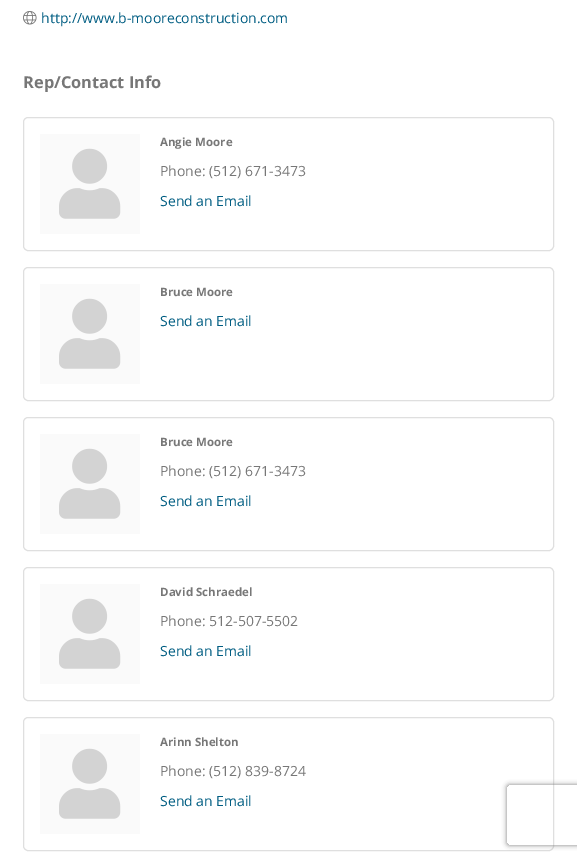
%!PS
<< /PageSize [577 859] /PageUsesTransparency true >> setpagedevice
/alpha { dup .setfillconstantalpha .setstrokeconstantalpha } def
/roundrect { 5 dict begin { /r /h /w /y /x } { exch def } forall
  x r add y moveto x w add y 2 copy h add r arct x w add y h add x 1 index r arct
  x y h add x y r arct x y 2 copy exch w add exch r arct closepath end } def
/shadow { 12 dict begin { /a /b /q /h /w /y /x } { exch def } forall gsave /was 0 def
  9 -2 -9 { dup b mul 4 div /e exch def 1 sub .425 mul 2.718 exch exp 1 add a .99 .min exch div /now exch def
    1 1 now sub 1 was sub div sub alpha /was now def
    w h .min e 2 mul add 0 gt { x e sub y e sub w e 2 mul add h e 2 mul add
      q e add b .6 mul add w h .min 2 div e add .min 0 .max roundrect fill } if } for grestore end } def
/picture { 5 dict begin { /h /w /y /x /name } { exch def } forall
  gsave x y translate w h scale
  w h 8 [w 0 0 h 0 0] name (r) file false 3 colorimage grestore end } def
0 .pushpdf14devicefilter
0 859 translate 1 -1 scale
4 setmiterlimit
1 setgray
0 0 577 859 rectfill
(img1.rgb) 23 11 14 14 picture
/OpenSans-Regular [14 0 0 -14 0 0] selectfont
0 0.365 0.51 setrgbcolor
41 23 moveto (http://www.b-mooreconstruction.com) show
/OpenSans-Bold [16.4 0 0 -16.4 0 0] selectfont
0.467 setgray
23 88 moveto (Rep/Contact Info) show
0.875 setgray
23.5 117.5 530 133 4.5 roundrect stroke
0.98 setgray
40 134 100 100 rectfill
(img2.rgb) 59 148 62 71 picture
/OpenSans-Bold [11.5 0 0 -11.5 0 0] selectfont
0.467 setgray
160 146 moveto (Angie Moore) show
/OpenSans-Regular [14 0 0 -14 0 0] selectfont
160 176 moveto (Phone: \(512\) 671-3473) show
0 0.365 0.51 setrgbcolor
160 206 moveto (Send an Email) show
0.875 setgray
23.5 267.5 530 133 4.5 roundrect stroke
0.98 setgray
40 284 100 100 rectfill
(img2.rgb) 59 298 62 71 picture
/OpenSans-Bold [11.5 0 0 -11.5 0 0] selectfont
0.467 setgray
160 296 moveto (Bruce Moore) show
/OpenSans-Regular [14 0 0 -14 0 0] selectfont
0 0.365 0.51 setrgbcolor
160 326 moveto (Send an Email) show
0.875 setgray
23.5 417.5 530 133 4.5 roundrect stroke
0.98 setgray
40 434 100 100 rectfill
(img2.rgb) 59 448 62 71 picture
/OpenSans-Bold [11.5 0 0 -11.5 0 0] selectfont
0.467 setgray
160 446 moveto (Bruce Moore) show
/OpenSans-Regular [14 0 0 -14 0 0] selectfont
160 476 moveto (Phone: \(512\) 671-3473) show
0 0.365 0.51 setrgbcolor
160 506 moveto (Send an Email) show
0.875 setgray
23.5 567.5 530 133 4.5 roundrect stroke
0.98 setgray
40 584 100 100 rectfill
(img2.rgb) 59 598 62 71 picture
/OpenSans-Bold [11.5 0 0 -11.5 0 0] selectfont
0.467 setgray
160 596 moveto (David Schraedel) show
/OpenSans-Regular [14 0 0 -14 0 0] selectfont
160 626 moveto (Phone: 512-507-5502) show
0 0.365 0.51 setrgbcolor
160 656 moveto (Send an Email) show
0.875 setgray
23.5 717.5 530 133 4.5 roundrect stroke
0.98 setgray
40 734 100 100 rectfill
(img2.rgb) 59 748 62 71 picture
/OpenSans-Bold [11.5 0 0 -11.5 0 0] selectfont
0.467 setgray
160 746 moveto (Arinn Shelton) show
/OpenSans-Regular [14 0 0 -14 0 0] selectfont
160 776 moveto (Phone: \(512\) 839-8724) show
0 0.365 0.51 setrgbcolor
160 806 moveto (Send an Email) show
gsave
newpath 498 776 moveto 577 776 lineto 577 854 lineto 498 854 lineto closepath 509 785 moveto 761 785 lineto 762 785 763 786 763 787 curveto 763 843 lineto 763 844 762 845 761 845 curveto 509 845 lineto 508 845 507 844 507 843 curveto 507 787 lineto 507 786 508 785 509 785 curveto closepath eoclip newpath
0.502 setgray
507 785 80 60 2 2.5 1 shadow
grestore
.poppdf14devicefilter showpage
